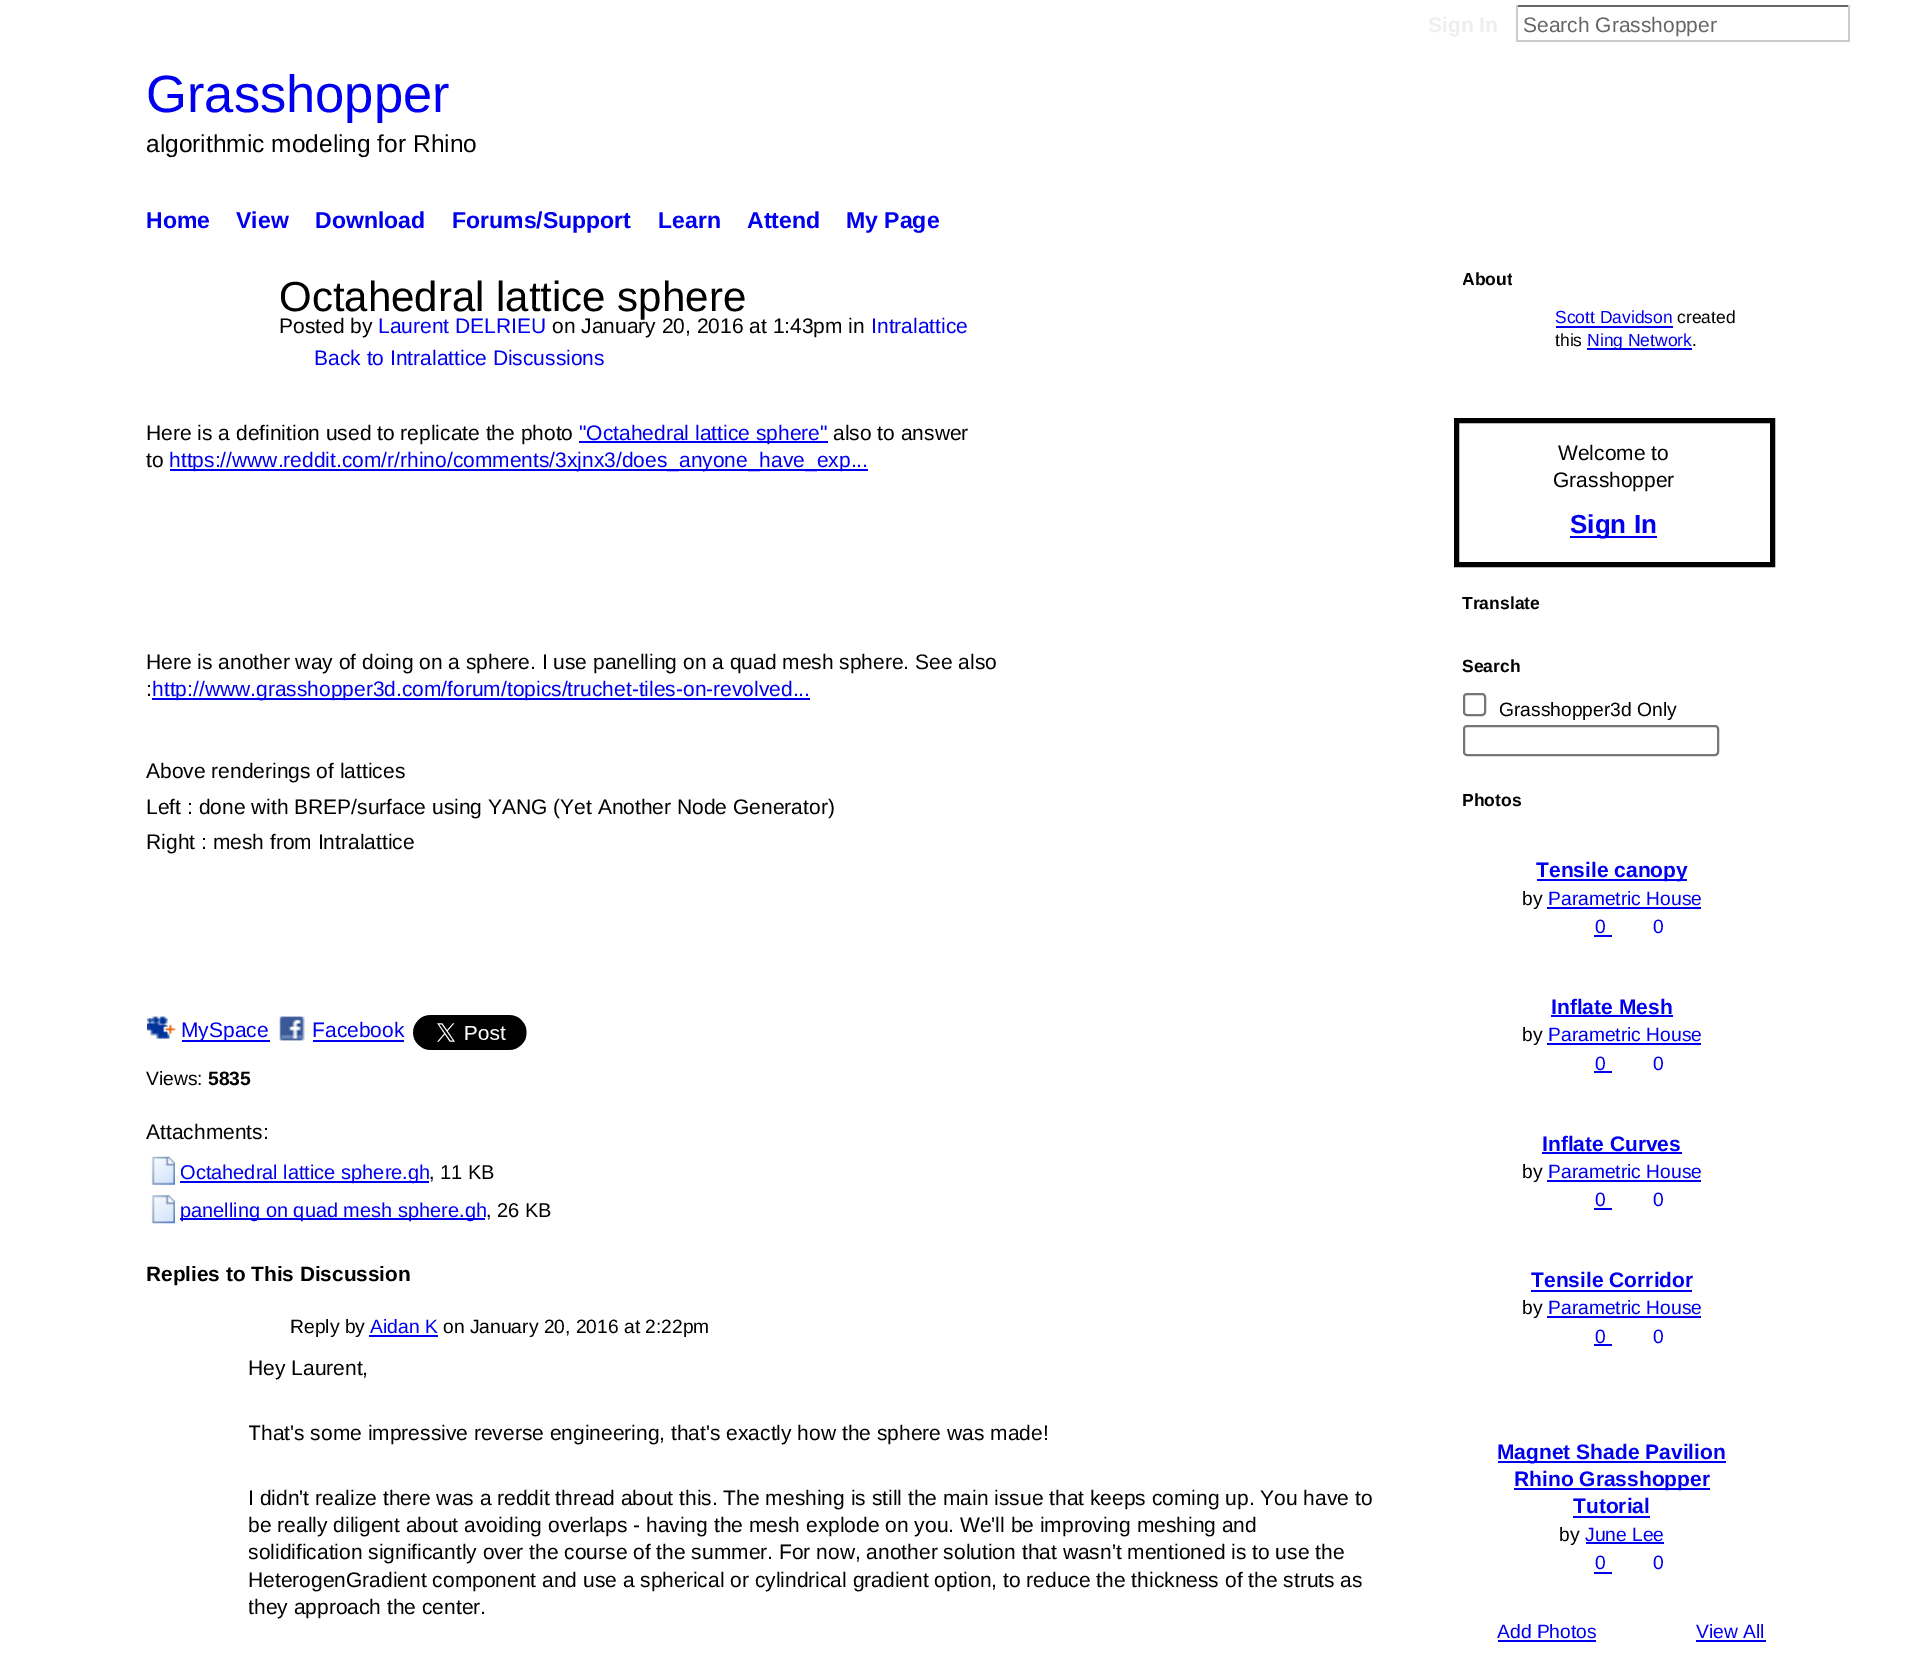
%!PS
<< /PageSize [1911 1653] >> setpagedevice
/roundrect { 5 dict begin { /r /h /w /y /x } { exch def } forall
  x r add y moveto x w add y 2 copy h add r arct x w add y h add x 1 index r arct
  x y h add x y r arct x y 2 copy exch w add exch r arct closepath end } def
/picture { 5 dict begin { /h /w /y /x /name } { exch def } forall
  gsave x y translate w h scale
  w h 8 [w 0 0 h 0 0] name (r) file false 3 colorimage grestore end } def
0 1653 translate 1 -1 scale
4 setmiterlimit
1 setgray
0 0 1911 1653 rectfill
/LiberationSans-Bold [21 0 0 -21 0 0] selectfont
0.933 setgray
1428 32 moveto (Sign In) show
0.4 setgray
1516 5 334 2 rectfill
0.8 setgray
1848 5 2 37 rectfill
1516 40 334 2 rectfill
1516 5 2 37 rectfill
/LiberationSans-Regular [21 0 0 -21 0 0] selectfont
0.4 setgray
1523 32 moveto (Search Grasshopper) show
/LiberationSans-Regular [52.5 0 0 -52.5 0 0] selectfont
0 0 0.933 setrgbcolor
146 112 moveto (Grasshopper) show
/LiberationSans-Regular [24.5 0 0 -24.5 0 0] selectfont
0 setgray
146 152 moveto (algorithmic modeling for Rhino) show
/LiberationSans-Bold [23 0 0 -23 0 0] selectfont
0 0 0.933 setrgbcolor
146 228 moveto (Home) show
236 228 moveto (View) show
315 228 moveto (Download) show
452 228 moveto (Forums/Support) show
658 228 moveto (Learn) show
747 228 moveto (Attend) show
846 228 moveto (My Page) show
/LiberationSans-Regular [42 0 0 -42 0 0] selectfont
0 setgray
279 311 moveto (Octahedral lattice sphere) show
/LiberationSans-Regular [21 0 0 -21 0 0] selectfont
279 333 moveto (Posted by) show
0 0 0.933 setrgbcolor
378 333 moveto (Laurent DELRIEU) show
0 setgray
552 333 moveto (on January 20, 2016 at 1:43pm in) show
0 0 0.933 setrgbcolor
871 333 moveto (Intralattice) show
314 365 moveto (Back to Intralattice Discussions) show
0 setgray
146 440 moveto (Here is a definition used to replicate the photo) show
0 0 0.933 setrgbcolor
579 441 249 2 rectfill
579 440 moveto ("Octahedral lattice sphere") show
0 setgray
833 440 moveto (also to answer) show
146 467 moveto (to) show
0 0 0.933 setrgbcolor
170 469 698 2 rectfill
169 467 moveto (https://www.reddit.com/r/rhino/comments/3xjnx3/does_anyone_have_exp...) show
0 setgray
146 669 moveto (Here is another way of doing on a sphere. I use panelling on a quad mesh sphere. See also) show
146 696 moveto (:) show
0 0 0.933 setrgbcolor
152 698 658 2 rectfill
152 696 moveto (http://www.grasshopper3d.com/forum/topics/truchet-tiles-on-revolved...) show
0 setgray
146 778 moveto (Above renderings of lattices) show
146 814 moveto (Left : done with BREP/surface using YANG \(Yet Another Node Generator\)) show
146 849 moveto (Right : mesh from Intralattice) show
(img1.rgb) 147 1016 29 23 picture
0 0 0.933 setrgbcolor
182 1040 88 2 rectfill
181 1037 moveto (MySpace) show
(img2.rgb) 279 1016 26 25 picture
312 1037 moveto (Facebook) show
313 1040 91 2 rectfill
(img3.rgb) 413 1015 114 35 picture
/LiberationSans-Regular [19.25 0 0 -19.25 0 0] selectfont
0 setgray
146 1085 moveto (Views:) show
/LiberationSans-Bold [19.25 0 0 -19.25 0 0] selectfont
208 1085 moveto (5835) show
/LiberationSans-Regular [21 0 0 -21 0 0] selectfont
146 1139 moveto (Attachments:) show
(img4.rgb) 151 1156 24 29 picture
0 0 0.933 setrgbcolor
180 1181 249 2 rectfill
/LiberationSans-Regular [20 0 0 -20 0 0] selectfont
180 1179 moveto (Octahedral lattice sphere.gh) show
0 setgray
429 1179 moveto (, 11 KB) show
(img5.rgb) 151 1195 24 29 picture
0 0 0.933 setrgbcolor
180 1218 305 2 rectfill
180 1217 moveto (panelling on quad mesh sphere.gh) show
0 setgray
486 1217 moveto (, 26 KB) show
/LiberationSans-Bold [20.8 0 0 -20.8 0 0] selectfont
146 1281 moveto (Replies to This Discussion) show
/LiberationSans-Regular [19.25 0 0 -19.25 0 0] selectfont
290 1333 moveto (Reply by) show
0 0 0.933 setrgbcolor
370 1333 moveto (Aidan K) show
369 1335 69 2 rectfill
0 setgray
443 1333 moveto (on January 20, 2016 at 2:22pm) show
/LiberationSans-Regular [21 0 0 -21 0 0] selectfont
248 1375 moveto (Hey Laurent,) show
gsave
249 1356 1127 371 rectclip
248 1440 moveto (That's some impressive reverse engineering, that's exactly how the sphere was made!) show
grestore
248 1505 moveto (I didn't realize there was a reddit thread about this. The meshing is still the main issue that keeps coming up. You have to) show
248 1532 moveto (be really diligent about avoiding overlaps - having the mesh explode on you. We'll be improving meshing and) show
gsave
249 1356 1127 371 rectclip
248 1559 moveto (solidification significantly over the course of the summer. For now, another solution that wasn't mentioned is to use the) show
grestore
248 1587 moveto (HeterogenGradient component and use a spherical or cylindrical gradient option, to reduce the thickness of the struts as) show
gsave
249 1356 1127 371 rectclip
248 1614 moveto (they approach the center.) show
grestore
gsave
1463 268 49 23 rectclip
/LiberationSans-Bold [17.5 0 0 -17.5 0 0] selectfont
1462 285 moveto (About) show
grestore
/LiberationSans-Regular [17.5 0 0 -17.5 0 0] selectfont
0 0 0.933 setrgbcolor
1555 323 moveto (Scott Davidson) show
1556 326 117 2 rectfill
0 setgray
1677 323 moveto (created) show
1555 346 moveto (this) show
0 0 0.933 setrgbcolor
1587 348 105 2 rectfill
1587 346 moveto (Ning Network) show
0 setgray
1692 346 moveto (.) show
5 setlinewidth
1456.5 420.5 316 144 rectstroke
/LiberationSans-Regular [21 0 0 -21 0 0] selectfont
1558 460 moveto (Welcome to) show
1553 487 moveto (Grasshopper) show
0 0 0.933 setrgbcolor
1570 536 87 2 rectfill
/LiberationSans-Bold [26 0 0 -26 0 0] selectfont
1570 533 moveto (Sign In) show
/LiberationSans-Bold [17.5 0 0 -17.5 0 0] selectfont
0 setgray
1462 609 moveto (Translate) show
1462 672 moveto (Search) show
0.463 setgray
2 setlinewidth
1464 694 21 21 3 roundrect stroke
/LiberationSans-Regular [19.25 0 0 -19.25 0 0] selectfont
0 setgray
1499 716 moveto (Grasshopper3d Only) show
0.463 setgray
1464 726 254 29 3 roundrect stroke
/LiberationSans-Bold [17.5 0 0 -17.5 0 0] selectfont
0 setgray
1462 806 moveto (Photos) show
0 0 0.933 setrgbcolor
1537 879 150 2 rectfill
/LiberationSans-Bold [21 0 0 -21 0 0] selectfont
1536 877 moveto (Tensile canopy) show
/LiberationSans-Regular [19.25 0 0 -19.25 0 0] selectfont
0 setgray
1522 905 moveto (by) show
0 0 0.933 setrgbcolor
1548 905 moveto (Parametric House) show
1547 907 154 2 rectfill
1595 933 moveto (0) show
1594 935 18 2 rectfill
1653 933 moveto (0) show
/LiberationSans-Bold [21 0 0 -21 0 0] selectfont
1551 1014 moveto (Inflate Mesh) show
1551 1015 122 2 rectfill
/LiberationSans-Regular [19.25 0 0 -19.25 0 0] selectfont
0 setgray
1522 1041 moveto (by) show
0 0 0.933 setrgbcolor
1548 1041 moveto (Parametric House) show
1547 1043 154 2 rectfill
1595 1070 moveto (0) show
1594 1071 18 2 rectfill
1653 1070 moveto (0) show
/LiberationSans-Bold [21 0 0 -21 0 0] selectfont
1542 1151 moveto (Inflate Curves) show
1542 1152 140 2 rectfill
/LiberationSans-Regular [19.25 0 0 -19.25 0 0] selectfont
0 setgray
1522 1178 moveto (by) show
0 0 0.933 setrgbcolor
1548 1178 moveto (Parametric House) show
1547 1180 154 2 rectfill
1595 1206 moveto (0) show
1594 1208 18 2 rectfill
1653 1206 moveto (0) show
/LiberationSans-Bold [21 0 0 -21 0 0] selectfont
1531 1287 moveto (Tensile Corridor) show
1531 1290 161 2 rectfill
/LiberationSans-Regular [19.25 0 0 -19.25 0 0] selectfont
0 setgray
1522 1314 moveto (by) show
0 0 0.933 setrgbcolor
1548 1314 moveto (Parametric House) show
1547 1316 154 2 rectfill
1595 1343 moveto (0) show
1594 1344 18 2 rectfill
1653 1343 moveto (0) show
1498 1461 228 2 rectfill
/LiberationSans-Bold [21 0 0 -21 0 0] selectfont
1497 1459 moveto (Magnet Shade Pavilion) show
1514 1488 196 2 rectfill
1514 1486 moveto (Rhino Grasshopper) show
1573 1513 moveto (Tutorial) show
1573 1516 77 2 rectfill
/LiberationSans-Regular [19.25 0 0 -19.25 0 0] selectfont
0 setgray
1559 1541 moveto (by) show
0 0 0.933 setrgbcolor
1585 1541 moveto (June Lee) show
1586 1542 78 2 rectfill
1595 1569 moveto (0) show
1594 1572 18 2 rectfill
1653 1569 moveto (0) show
1497 1638 moveto (Add Photos) show
1498 1640 98 2 rectfill
1696 1638 moveto (View All) show
1696 1640 70 2 rectfill
showpage
